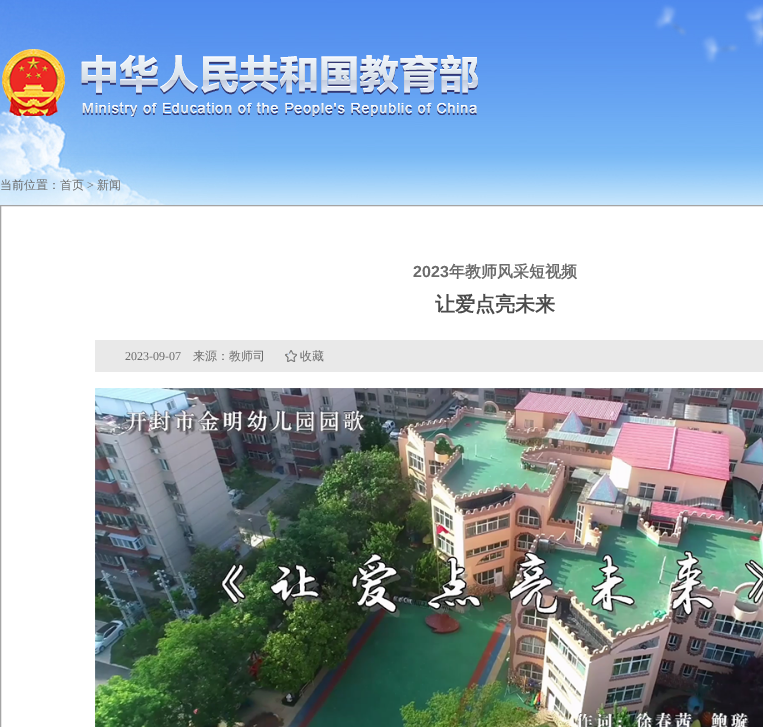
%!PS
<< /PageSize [763 727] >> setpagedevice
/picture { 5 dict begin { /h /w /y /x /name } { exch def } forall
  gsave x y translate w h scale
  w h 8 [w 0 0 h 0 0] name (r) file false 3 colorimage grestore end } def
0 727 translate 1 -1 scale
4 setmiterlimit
1 setgray
0 0 763 727 rectfill
(img1.rgb) 0 0 763 205 picture
(img2.rgb) 2 49 476 68 picture
(img3.rgb) 2 49 476 68 picture
/WenQuanYiZenHei-Medium [12 0 0 -12 0 0] selectfont
0.42 setgray
0 189 moveto (当前位置：首页) show
/LiberationSerif-Regular [12 0 0 -12 0 0] selectfont
87 189 moveto (>) show
/WenQuanYiZenHei-Medium [12 0 0 -12 0 0] selectfont
97 189 moveto (新闻) show
0.643 setgray
0.5 205.5 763 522 rectstroke
/LiberationSans-Bold [16 0 0 -16 0 0] selectfont
0.42 setgray
413 277 moveto (2023) show
/WenQuanYiZenHei-Bold [16 0 0 -16 0 0] selectfont
449 277 moveto (年教师风采短视频) show
/WenQuanYiZenHei-Bold [20 0 0 -20 0 0] selectfont
0.294 setgray
435 311 moveto (让爱点亮未来) show
0.914 setgray
95 340 668 32 rectfill
/LiberationSerif-Regular [12 0 0 -12 0 0] selectfont
0.42 setgray
125 360 moveto (2023-09-07) show
/WenQuanYiZenHei-Medium [12 0 0 -12 0 0] selectfont
193 360 moveto (来源：教师司) show
(img4.rgb) 285 350 12 12 picture
300 360 moveto (收藏) show
(img5.rgb) 95 388 668 339 picture
showpage
